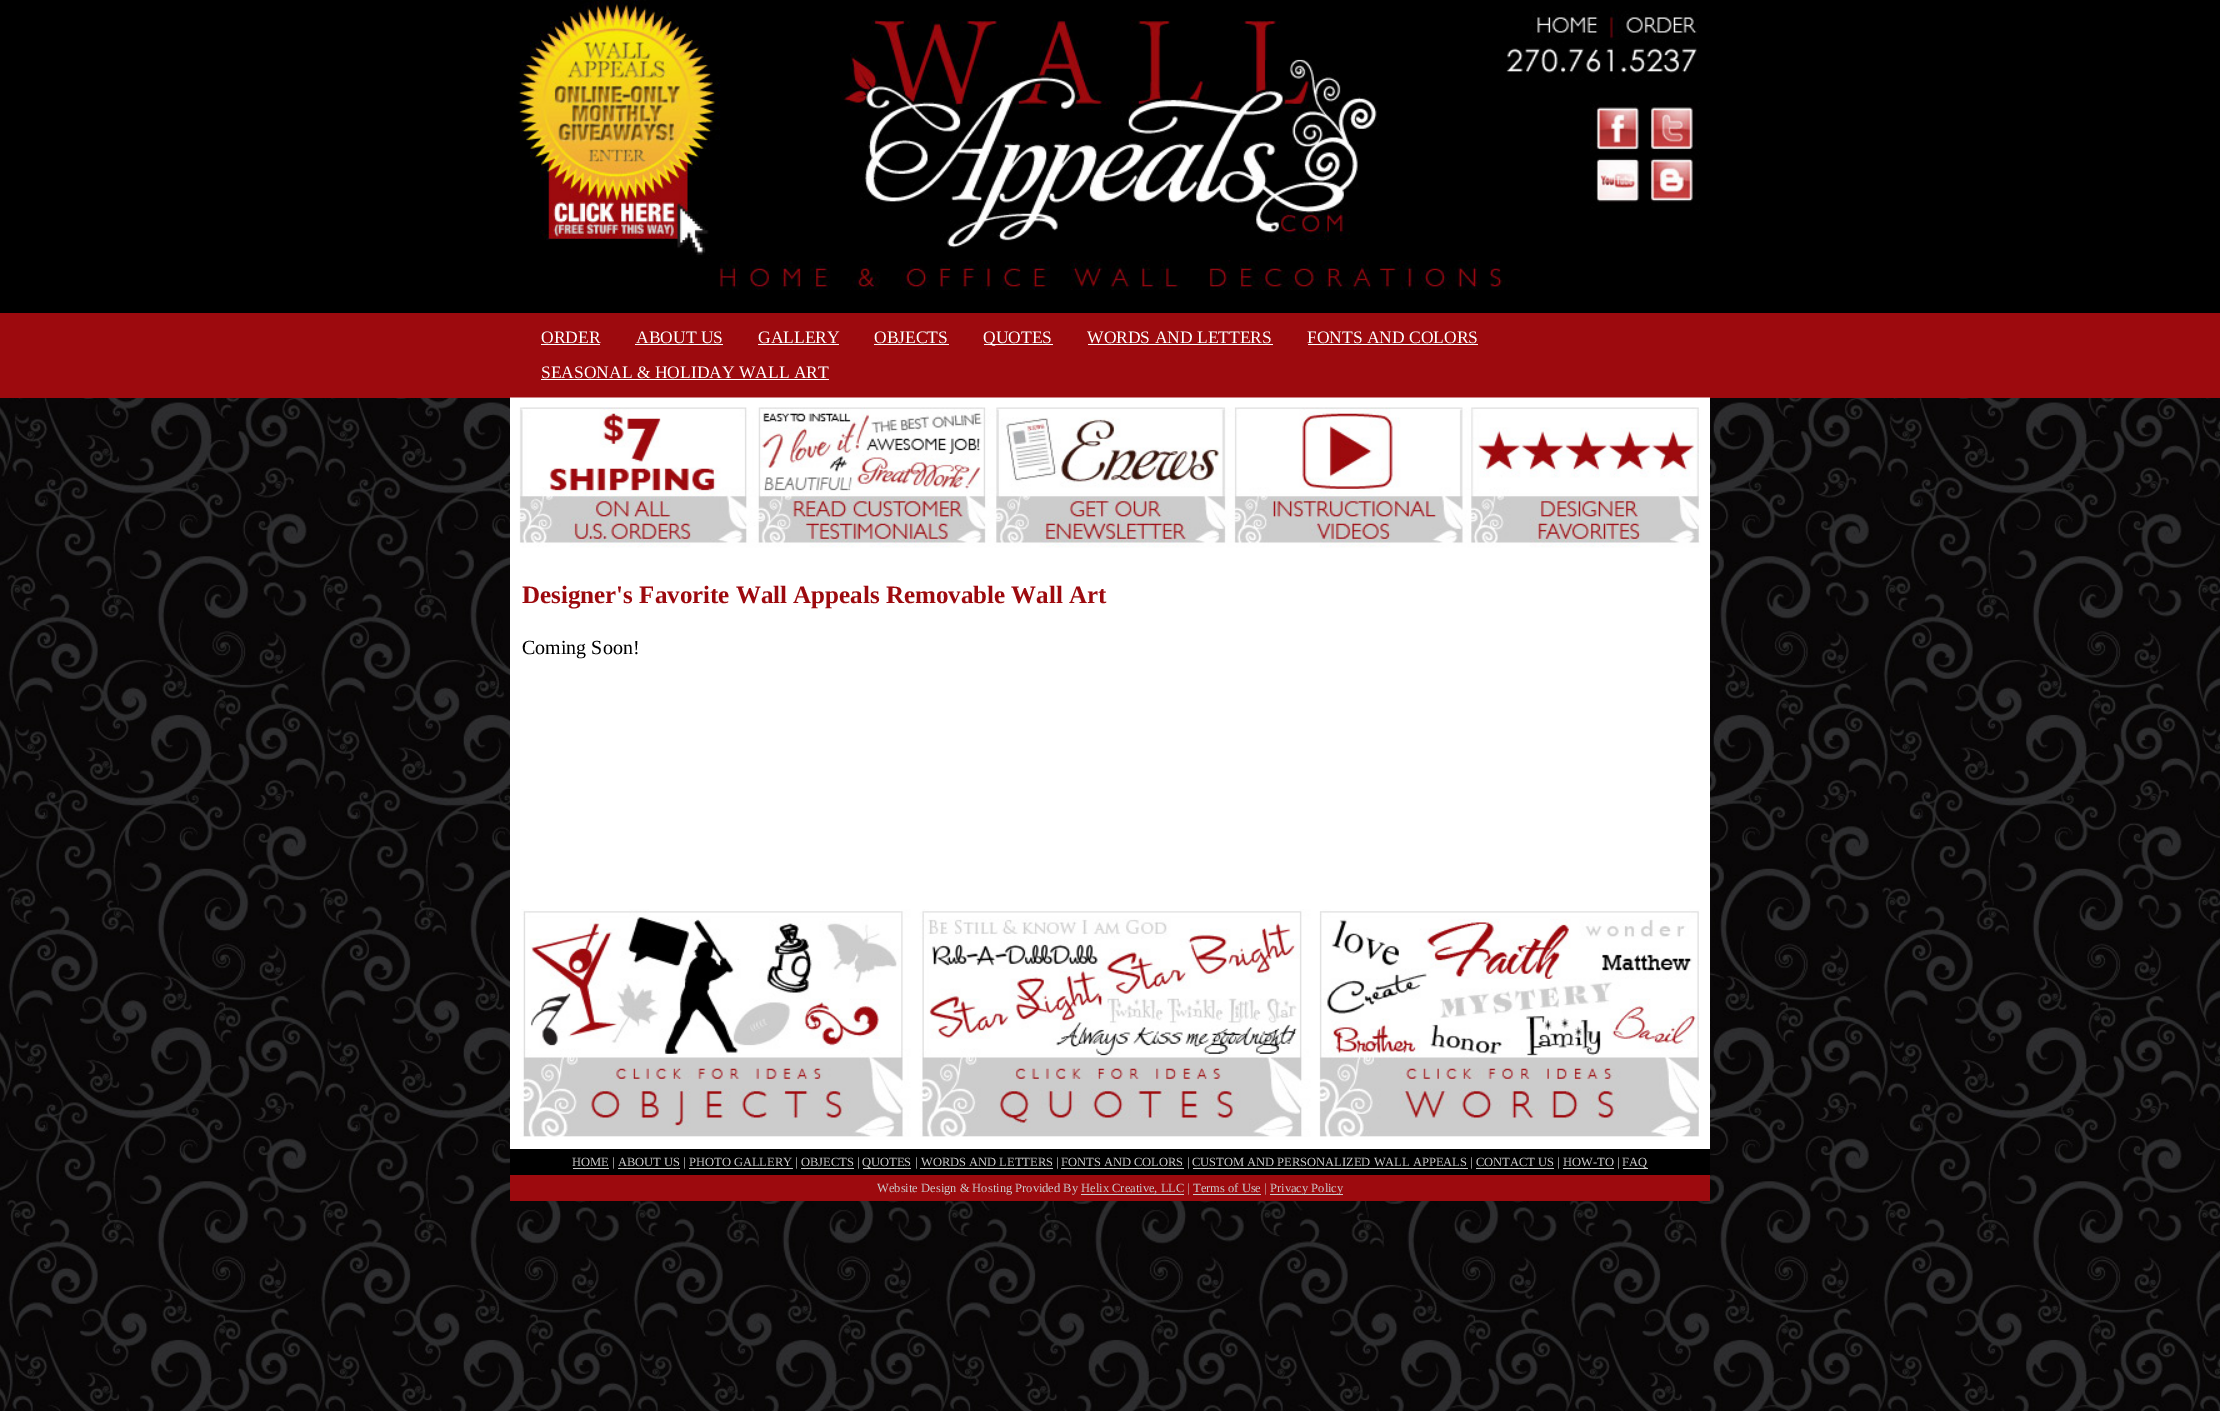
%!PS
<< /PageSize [2220 1411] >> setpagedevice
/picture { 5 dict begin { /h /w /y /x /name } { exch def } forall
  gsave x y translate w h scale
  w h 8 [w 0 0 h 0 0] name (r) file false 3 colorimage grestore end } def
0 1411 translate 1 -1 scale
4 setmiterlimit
1 setgray
0 0 2220 1411 rectfill
(img1.rgb) 0 398 2220 1013 picture
0 setgray
0 0 2220 313 rectfill
(img2.rgb) 514 0 1186 290 picture
0.616 0.039 0.055 setrgbcolor
0 313 2220 85 rectfill
/LiberationSerif-Regular [17.5 0 0 -17.5 0 0] selectfont
1 setgray
541 343 moveto (ORDER) show
541 344 59 1 rectfill
636 343 moveto (ABOUT US) show
635 344 88 1 rectfill
758 343 moveto (GALLERY) show
758 344 81 1 rectfill
874 343 moveto (OBJECTS) show
874 344 75 1 rectfill
984 344 69 1 rectfill
983 343 moveto (QUOTES) show
1087 343 moveto (WORDS AND LETTERS) show
1088 344 185 1 rectfill
1307 343 moveto (FONTS AND COLORS) show
1308 344 170 1 rectfill
541 378 moveto (SEASONAL & HOLIDAY WALL ART) show
541 379 288 1 rectfill
510 548 1200 601 rectfill
(img3.rgb) 510 397 1200 151 picture
/LiberationSerif-Bold [25 0 0 -25 0 0] selectfont
0.616 0.039 0.055 setrgbcolor
522 603 moveto (Designer's Favorite Wall Appeals Removable Wall Art) show
/LiberationSerif-Regular [20 0 0 -20 0 0] selectfont
0 setgray
522 654 moveto (Coming Soon!) show
(img4.rgb) 520 909 1180 228 picture
510 1149 1200 26 rectfill
/LiberationSerif-Regular [12.5 0 0 -12.5 0 0] selectfont
0.8 setgray
572 1166 moveto (HOME) show
573 1168 36 1 rectfill
1 setgray
612 1166 moveto (|) show
0.8 setgray
618 1166 moveto (ABOUT US) show
618 1168 62 1 rectfill
1 setgray
683 1166 moveto (|) show
0.8 setgray
689 1166 moveto (PHOTO GALLERY) show
689 1168 104 1 rectfill
1 setgray
795 1166 moveto (|) show
0.8 setgray
801 1166 moveto (OBJECTS) show
801 1168 53 1 rectfill
1 setgray
857 1166 moveto (|) show
0.8 setgray
862 1166 moveto (QUOTES) show
863 1168 48 1 rectfill
1 setgray
915 1166 moveto (|) show
0.8 setgray
921 1166 moveto (WORDS AND LETTERS) show
920 1168 133 1 rectfill
1 setgray
1056 1166 moveto (|) show
0.8 setgray
1061 1166 moveto (FONTS AND COLORS) show
1061 1168 123 1 rectfill
1 setgray
1187 1166 moveto (|) show
0.8 setgray
1192 1166 moveto (CUSTOM AND PERSONALIZED WALL APPEALS) show
1193 1168 275 1 rectfill
1 setgray
1470 1166 moveto (|) show
0.8 setgray
1476 1166 moveto (CONTACT US) show
1476 1168 78 1 rectfill
1 setgray
1557 1166 moveto (|) show
0.8 setgray
1563 1166 moveto (HOW-TO) show
1563 1168 51 1 rectfill
1 setgray
1617 1166 moveto (|) show
0.8 setgray
1622 1166 moveto (FAQ) show
1623 1168 25 1 rectfill
0.616 0.039 0.055 setrgbcolor
510 1175 1200 26 rectfill
0.8 setgray
877 1192 moveto (Website Design & Hosting Provided By Helix Creative, LLC | Terms of Use |) show
1270 1194 73 1 rectfill
1270 1192 moveto (Privacy Policy) show
1081 1194 103 1 rectfill
1193 1194 68 1 rectfill
showpage
